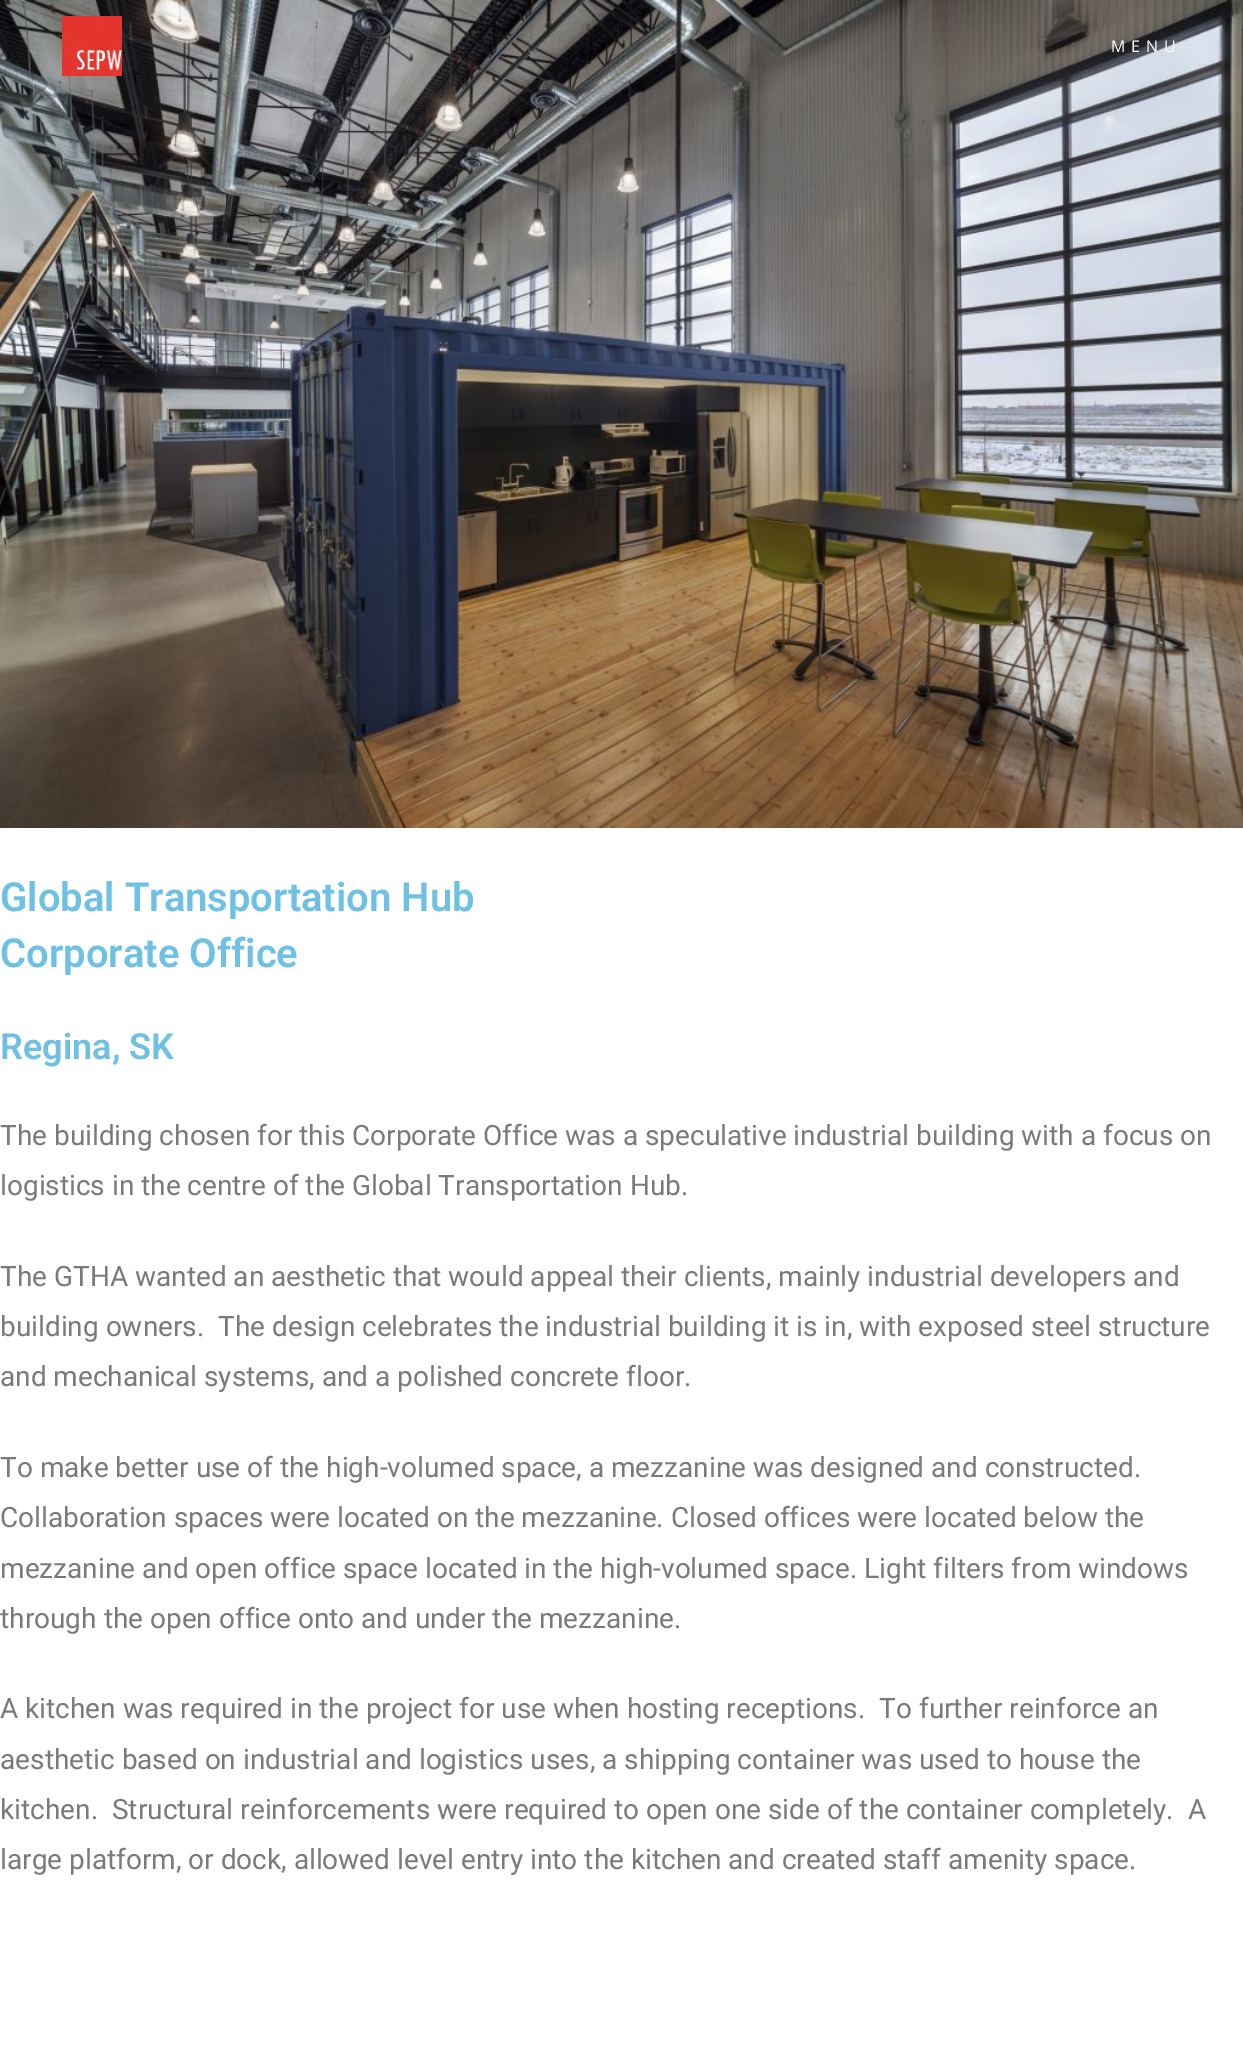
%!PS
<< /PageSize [1243 2052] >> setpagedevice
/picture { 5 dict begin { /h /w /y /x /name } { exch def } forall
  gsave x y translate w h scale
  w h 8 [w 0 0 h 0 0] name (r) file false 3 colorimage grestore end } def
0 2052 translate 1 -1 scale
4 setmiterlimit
1 setgray
0 0 1243 2052 rectfill
(img2.rgb) 0 0 1243 828 picture
(img1.rgb) 62 16 60 60 picture
/OpenSans-Regular [16 0 0 -16 0 0] selectfont
1111 52 moveto 6 0 (MENU) ashow
/Roboto-SemiBold [40 0 0 -40 0 0] selectfont
0.431 0.757 0.894 setrgbcolor
0 911 moveto (Global Transportation Hub) show
0 967 moveto (Corporate Office) show
/Roboto-SemiBold [36 0 0 -36 0 0] selectfont
0 1059 moveto (Regina, SK) show
/Roboto-Regular [28 0 0 -28 0 0] selectfont
0.478 setgray
0 1145 moveto (The building chosen for this Corporate Office was a speculative industrial building with a focus on) show
0 1195 moveto (logistics in the centre of the Global Transportation Hub.) show
0 1286 moveto (The GTHA wanted an aesthetic that would appeal their clients, mainly industrial developers and) show
0 1336 moveto (building owners.  The design celebrates the industrial building it is in, with exposed steel structure) show
0 1386 moveto (and mechanical systems, and a polished concrete floor.) show
0 1477 moveto (To make better use of the high-volumed space, a mezzanine was designed and constructed.) show
0 1527 moveto (Collaboration spaces were located on the mezzanine. Closed offices were located below the) show
0 1578 moveto (mezzanine and open office space located in the high-volumed space. Light filters from windows) show
0 1628 moveto (through the open office onto and under the mezzanine.) show
0 1718 moveto (A kitchen was required in the project for use when hosting receptions.  To further reinforce an) show
0 1769 moveto (aesthetic based on industrial and logistics uses, a shipping container was used to house the) show
0 1819 moveto (kitchen.  Structural reinforcements were required to open one side of the container completely.  A) show
0 1869 moveto (large platform, or dock, allowed level entry into the kitchen and created staff amenity space.) show
showpage
